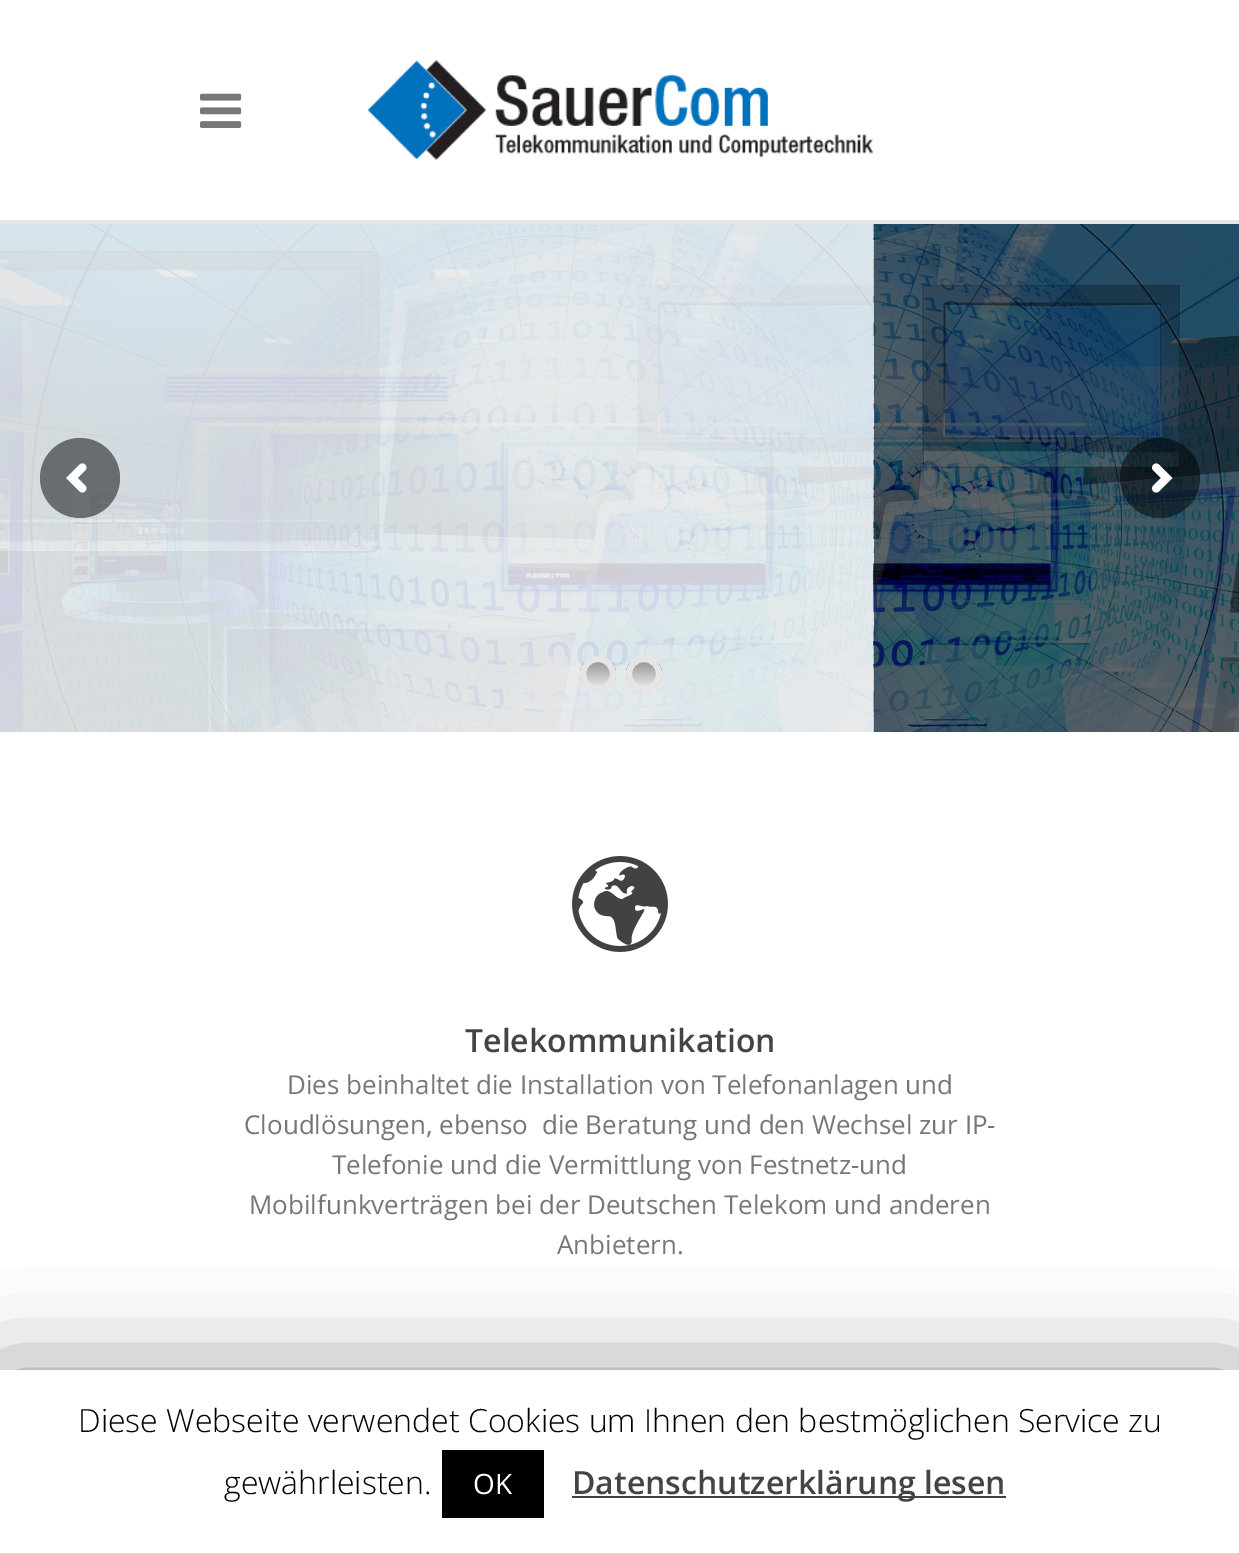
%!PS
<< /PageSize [1239 1553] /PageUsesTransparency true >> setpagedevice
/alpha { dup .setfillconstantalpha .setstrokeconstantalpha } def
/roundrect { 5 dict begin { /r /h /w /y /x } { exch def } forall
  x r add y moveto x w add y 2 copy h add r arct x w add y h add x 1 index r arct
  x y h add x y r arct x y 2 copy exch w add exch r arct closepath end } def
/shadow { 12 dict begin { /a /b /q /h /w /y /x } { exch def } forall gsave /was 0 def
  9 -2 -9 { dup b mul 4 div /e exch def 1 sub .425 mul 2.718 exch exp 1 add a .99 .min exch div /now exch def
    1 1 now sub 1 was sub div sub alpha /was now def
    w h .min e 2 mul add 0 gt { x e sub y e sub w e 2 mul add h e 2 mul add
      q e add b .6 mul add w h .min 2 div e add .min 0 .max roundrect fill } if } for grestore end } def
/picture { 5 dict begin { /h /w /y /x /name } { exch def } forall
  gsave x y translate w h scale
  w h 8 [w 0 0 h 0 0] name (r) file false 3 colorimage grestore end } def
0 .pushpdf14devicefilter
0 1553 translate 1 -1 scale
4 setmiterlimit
1 setgray
0 0 1239 1553 rectfill
(img1.rgb) 200 93 42 35 picture
(img2.rgb) 368 60 505 100 picture
0.906 setgray
0 220 1239 4 rectfill
0.914 setgray
0 224 873 508 rectfill
(img3.rgb) 0 224 873 508 picture
(img4.rgb) 873 224 366 508 picture
0.5 alpha
0 setgray
newpath 80 478 40 0 360 arc closepath fill
1 alpha
(img5.rgb) 66 463 21 30 picture
0.5 alpha
newpath 1160 478 40 0 360 arc closepath fill
1 alpha
(img6.rgb) 1152 463 21 30 picture
gsave
580 656 36 36 18 roundrect clip newpath
gsave newpath 580 662 moveto 616 662 lineto 616 686 lineto 580 686 lineto closepath clip newpath
<< /ShadingType 2 /ColorSpace /DeviceRGB /Coords [598 662 598 686] /Extend [true true] /Function << /FunctionType 2 /Domain [0 1] /C0 [0.6 0.6 0.6] /C1 [0.882 0.882 0.882] /N 1 >> >> shfill grestore
grestore
0.898 setgray
6 setlinewidth
newpath 598 674 15 0 360 arc closepath stroke
gsave
626 656 36 36 18 roundrect clip newpath
gsave newpath 626 662 moveto 662 662 lineto 662 686 lineto 626 686 lineto closepath clip newpath
<< /ShadingType 2 /ColorSpace /DeviceRGB /Coords [644 662 644 686] /Extend [true true] /Function << /FunctionType 2 /Domain [0 1] /C0 [0.6 0.6 0.6] /C1 [0.882 0.882 0.882] /N 1 >> >> shfill grestore
grestore
newpath 644 674 15 0 360 arc closepath stroke
(img7.rgb) 572 856 96 96 picture
/OpenSans-SemiBold [32 0 0 -32 0 0] selectfont
0.267 setgray
465 1052 moveto (Telekommunikation) show
/OpenSans-Regular [26 0 0 -26 0 0] selectfont
0.467 setgray
287 1094 moveto (Dies beinhaltet die Installation von Telefonanlagen und) show
244 1134 moveto (Cloudlösungen, ebenso  die Beratung und den Wechsel zur IP-) show
332 1174 moveto (Telefonie und die Vermittlung von Festnetz-und) show
249 1214 moveto (Mobilfunkverträgen bei der Deutschen Telekom und anderen) show
557 1254 moveto (Anbietern.) show
0 setgray
0 1380 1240 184 0 50 0.5 shadow
1 setgray
0 1370 1239 183 rectfill
/OpenSans-Light [32 0 0 -32 0 0] selectfont
0 setgray
78 1432 moveto (Diese Webseite verwendet Cookies um Ihnen den bestmöglichen Service zu) show
224 1494 moveto (gewährleisten.) show
442 1450 102 68 rectfill
/OpenSans-Regular [28 0 0 -28 0 0] selectfont
1 setgray
473 1494 moveto (OK) show
0.267 setgray
572 1496 434 2 rectfill
/OpenSans-SemiBold [32 0 0 -32 0 0] selectfont
572 1494 moveto (Datenschutzerklärung lesen) show
.poppdf14devicefilter showpage
